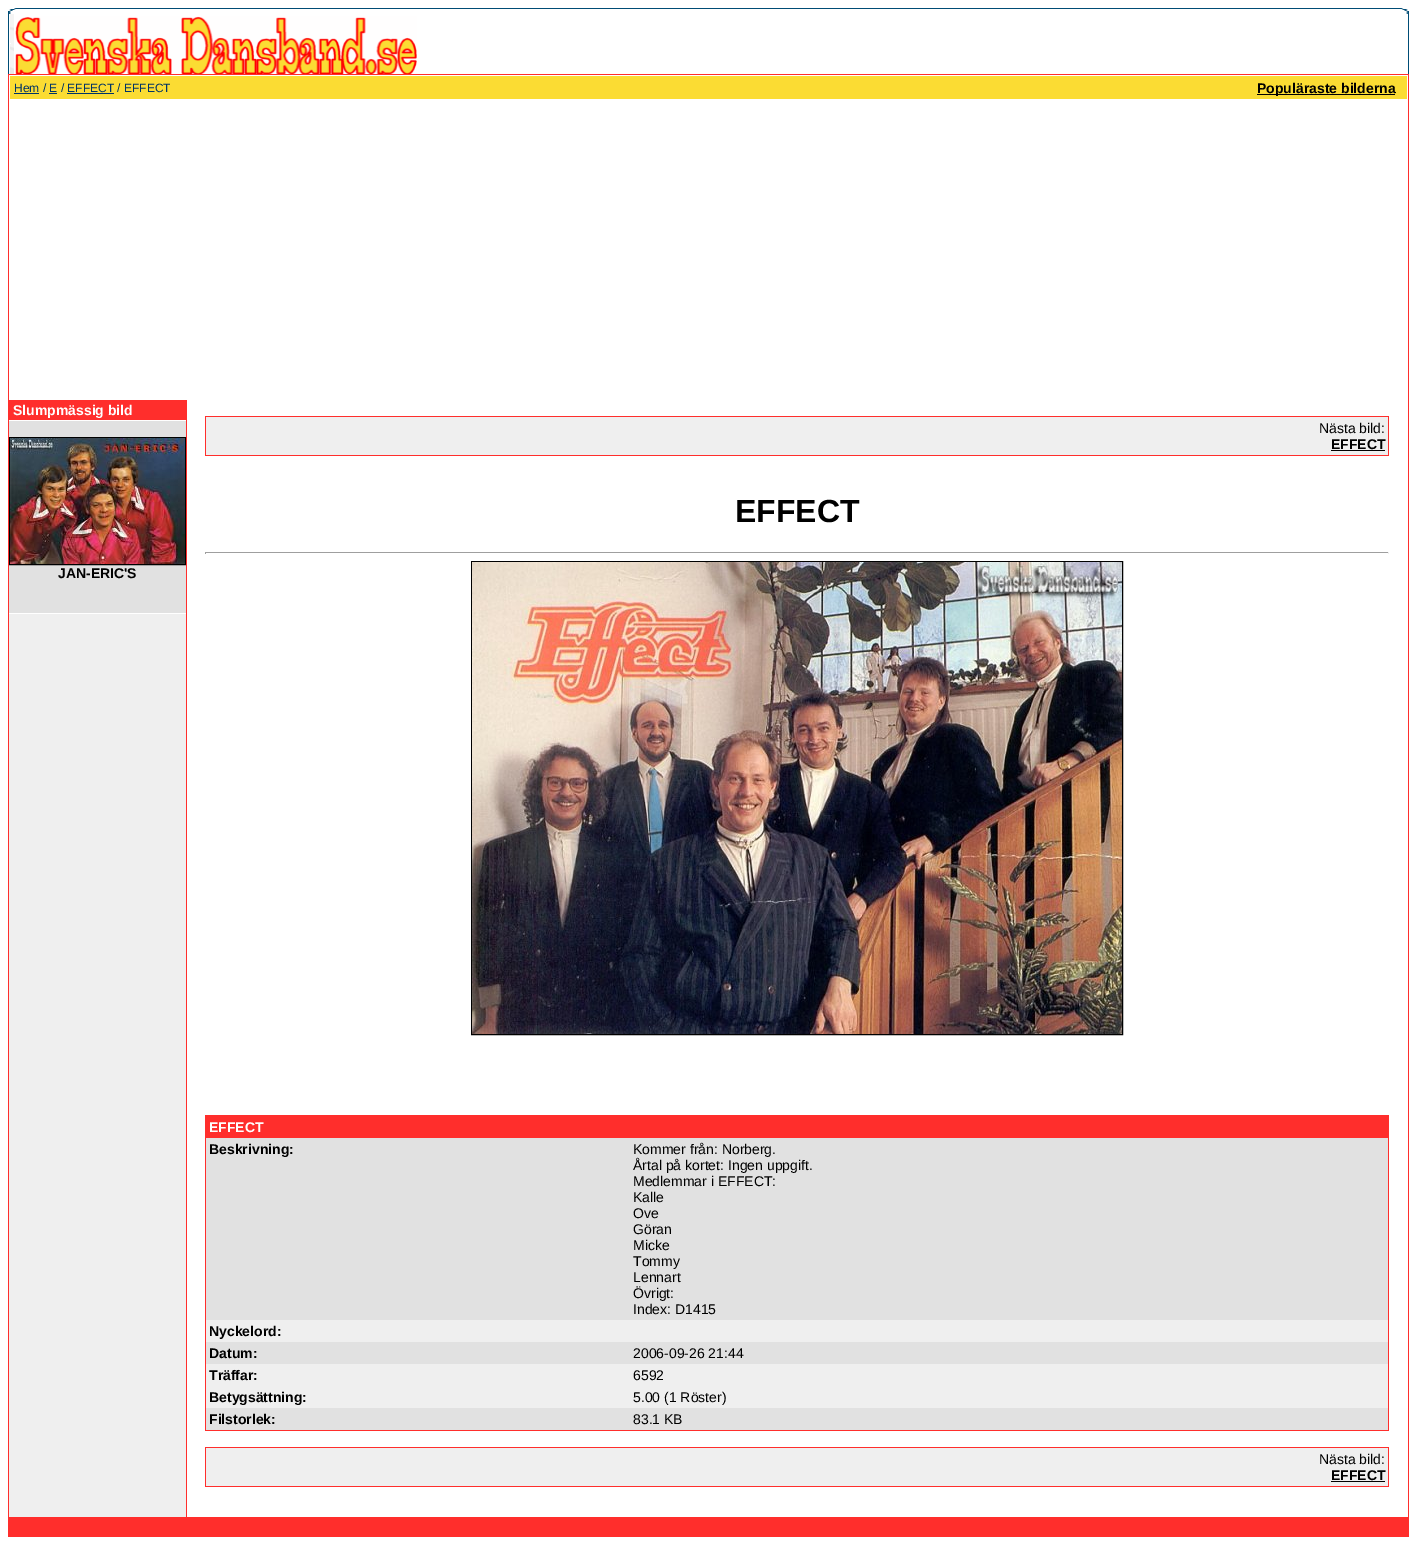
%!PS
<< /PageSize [1417 1556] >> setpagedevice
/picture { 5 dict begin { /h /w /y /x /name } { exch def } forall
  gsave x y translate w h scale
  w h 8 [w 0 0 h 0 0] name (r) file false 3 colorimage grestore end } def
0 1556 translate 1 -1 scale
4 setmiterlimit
1 setgray
0 0 1417 1556 rectfill
(img1.rgb) 8 8 1401 6 picture
(img2.rgb) 8 14 6 60 picture
(img3.rgb) 15 16 402 58 picture
0 0.298 0.459 setrgbcolor
1408 14 1 60 rectfill
1 0.18 0.173 setrgbcolor
8 74 1401 1463 rectfill
1 setgray
9 75 1399 1442 rectfill
0.984 0.863 0.2 setrgbcolor
10 76 1397 23 rectfill
/LiberationSans-Regular [12 0 0 -12 0 0] selectfont
0 0.2 0.4 setrgbcolor
14 92 moveto (Hem / E / EFFECT / EFFECT) show
14 93 25 1 rectfill
49 93 8 1 rectfill
67 93 47 1 rectfill
0 setgray
1257 94 138 1 rectfill
/LiberationSans-Bold [14 0 0 -14 0 0] selectfont
1257 93 moveto (Populäraste bilderna) show
0.937 setgray
9 614 177 903 rectfill
1 0.18 0.173 setrgbcolor
9 400 177 20 rectfill
1 setgray
13 415 moveto (Slumpmässig bild) show
0.882 setgray
9 421 177 192 rectfill
0 setgray
9.5 437.5 176 127 rectstroke
(img4.rgb) 10 438 175 126 picture
58 578 moveto (JAN-ERIC'S) show
1 0.18 0.173 setrgbcolor
186 400 1 1117 rectfill
205 416 1184 40 rectfill
0.937 setgray
206 417 1182 38 rectfill
/LiberationSans-Regular [14 0 0 -14 0 0] selectfont
0 setgray
1319 433 moveto (Nästa bild:) show
/LiberationSans-Bold [14 0 0 -14 0 0] selectfont
1331 449 moveto (EFFECT) show
1331 450 54 1 rectfill
/LiberationSans-Bold [32 0 0 -32 0 0] selectfont
735 522 moveto (EFFECT) show
0.624 setgray
205 552 1184 1 rectfill
0.933 setgray
1388 552 1 2 rectfill
0.624 setgray
205 552 1 2 rectfill
0 setgray
471.5 561.5 651 473 rectstroke
(img5.rgb) 472 562 650 472 picture
1 0.18 0.173 setrgbcolor
205 1115 1184 316 rectfill
/LiberationSans-Bold [14 0 0 -14 0 0] selectfont
1 setgray
209 1132 moveto (EFFECT) show
0.882 setgray
206 1138 1182 182 rectfill
0 setgray
209 1154 moveto (Beskrivning:) show
/LiberationSans-Regular [14 0 0 -14 0 0] selectfont
633 1154 moveto (Kommer från: Norberg.) show
633 1170 moveto (Årtal på kortet: Ingen uppgift.) show
633 1186 moveto (Medlemmar i EFFECT:) show
633 1202 moveto (Kalle) show
633 1218 moveto (Ove) show
633 1234 moveto (Göran) show
633 1250 moveto (Micke) show
633 1266 moveto (Tommy) show
633 1282 moveto (Lennart) show
633 1298 moveto (Övrigt:) show
633 1314 moveto (Index: D1415) show
0.937 setgray
206 1320 1182 22 rectfill
/LiberationSans-Bold [14 0 0 -14 0 0] selectfont
0 setgray
209 1336 moveto (Nyckelord:) show
0.882 setgray
206 1342 1182 22 rectfill
0 setgray
209 1358 moveto (Datum:) show
/LiberationSans-Regular [14 0 0 -14 0 0] selectfont
633 1358 moveto (2006-09-26 21:44) show
0.937 setgray
206 1364 1182 22 rectfill
/LiberationSans-Bold [14 0 0 -14 0 0] selectfont
0 setgray
209 1380 moveto (Träffar:) show
/LiberationSans-Regular [14 0 0 -14 0 0] selectfont
633 1380 moveto (6592) show
0.937 setgray
206 1386 1182 22 rectfill
/LiberationSans-Bold [14 0 0 -14 0 0] selectfont
0 setgray
209 1402 moveto (Betygsättning:) show
/LiberationSans-Regular [14 0 0 -14 0 0] selectfont
633 1402 moveto (5.00 \(1 Röster\)) show
0.882 setgray
206 1408 1182 22 rectfill
/LiberationSans-Bold [14 0 0 -14 0 0] selectfont
0 setgray
209 1424 moveto (Filstorlek:) show
/LiberationSans-Regular [14 0 0 -14 0 0] selectfont
633 1424 moveto (83.1 KB) show
1 0.18 0.173 setrgbcolor
205 1447 1184 40 rectfill
0.937 setgray
206 1448 1182 38 rectfill
0 setgray
1319 1464 moveto (Nästa bild:) show
/LiberationSans-Bold [14 0 0 -14 0 0] selectfont
1331 1480 moveto (EFFECT) show
1331 1481 54 1 rectfill
showpage
